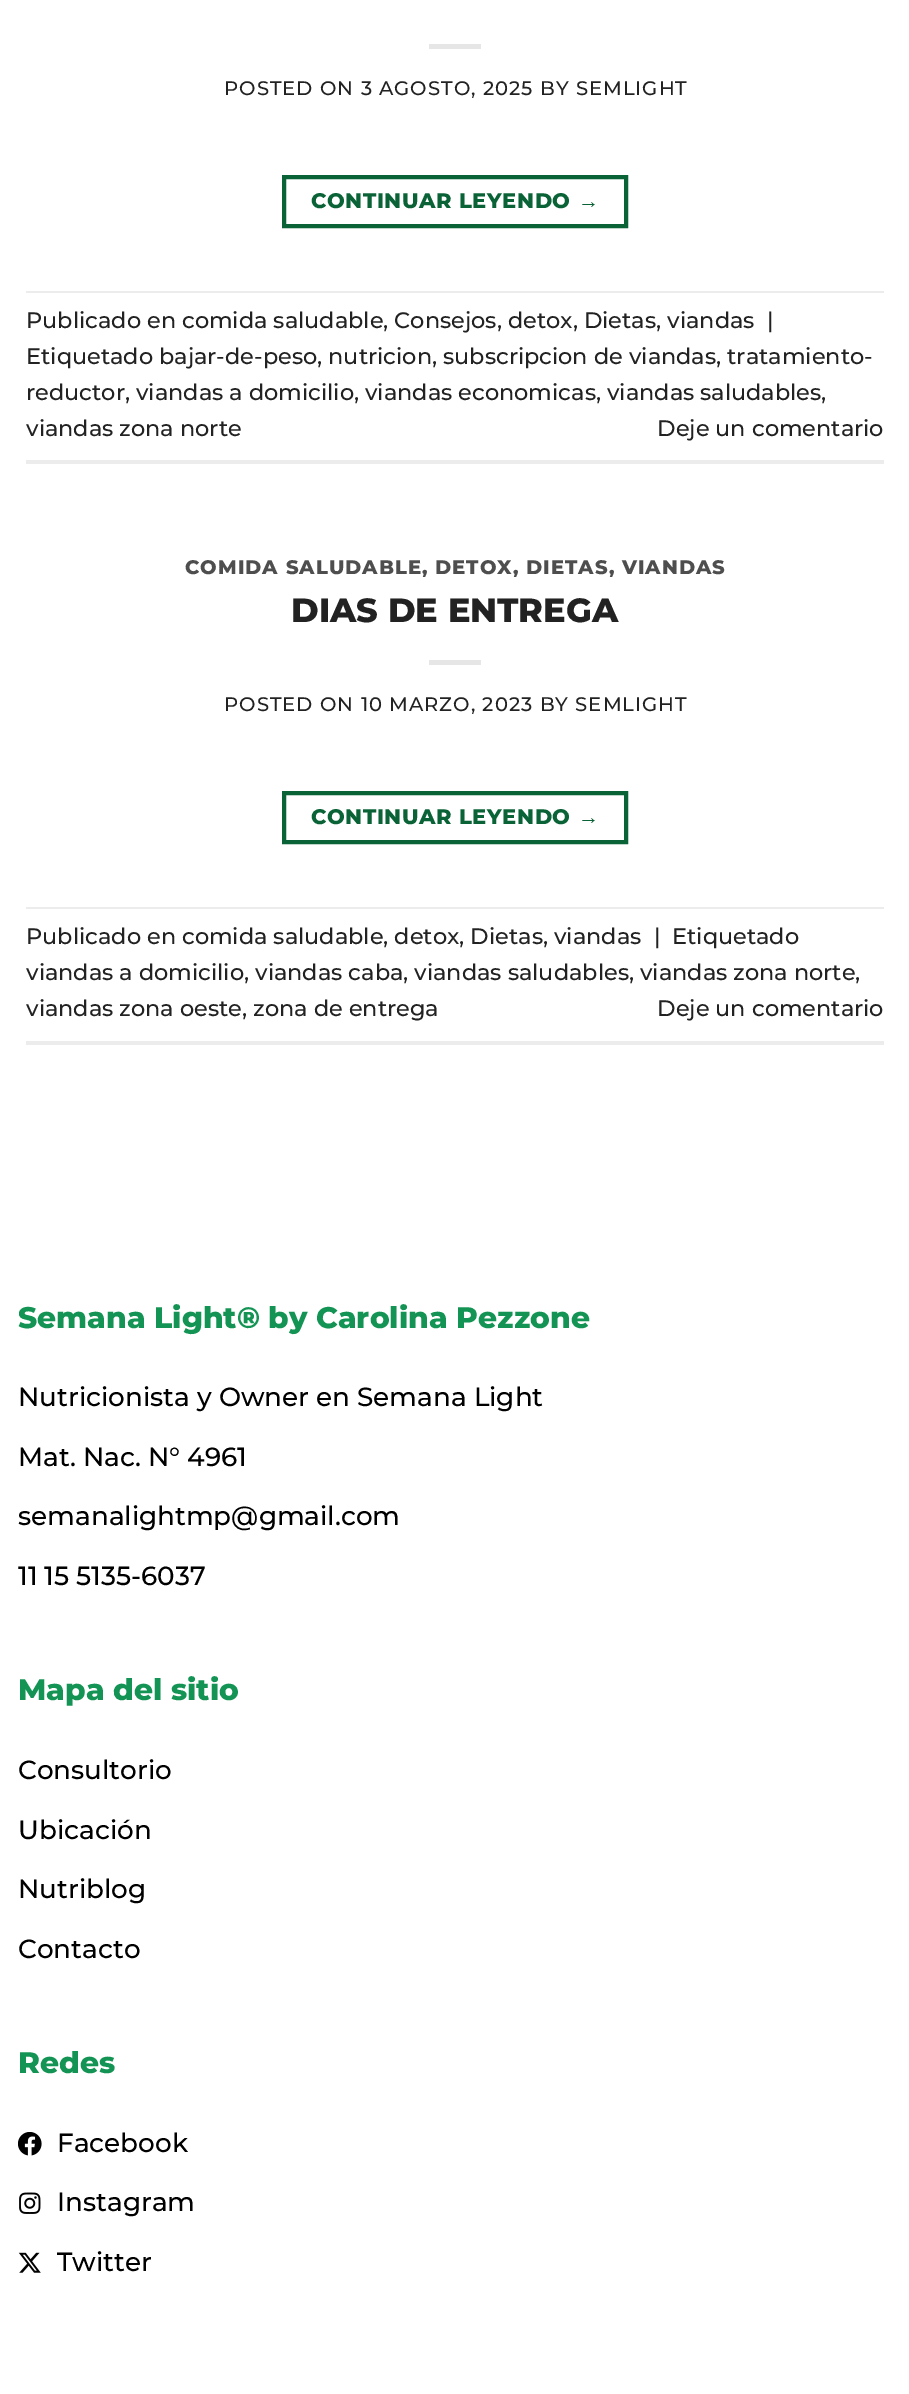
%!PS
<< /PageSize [909 2394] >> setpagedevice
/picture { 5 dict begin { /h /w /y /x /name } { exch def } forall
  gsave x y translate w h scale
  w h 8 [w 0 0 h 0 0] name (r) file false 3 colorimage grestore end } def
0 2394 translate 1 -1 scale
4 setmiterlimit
1 setgray
0 0 909 2394 rectfill
0.902 setgray
429 44 52 5 rectfill
/Montserrat-Medium [19.6 0 0 -19.6 0 0] selectfont
0.133 setgray
224 95 moveto 1 0 (POSTED ON 3 AGOSTO, 2025 BY SEMLIGHT) ashow
0.039 0.388 0.212 setrgbcolor
4 setlinewidth
284 177 342 49 rectstroke
/Montserrat-ExtraBold [21 0 0 -21 0 0] selectfont
311 208 moveto 0.6 0 (CONTINUAR LEYENDO) ashow
/LiberationSans-Bold [21 0 0 -21 0 0] selectfont
578 208 moveto 0.6 0 (→) ashow
0.925 setgray
26 291 858 2 rectfill
26 460 858 4 rectfill
/Montserrat-Medium [22.4 0 0 -22.4 0 0] selectfont
0.133 setgray
26 328 moveto (Publicado en comida saludable, Consejos, detox, Dietas, viandas) show
767 328 moveto (|) show
26 364 moveto (Etiquetado bajar-de-peso, nutricion, subscripcion de viandas, tratamiento-) show
26 400 moveto (reductor, viandas a domicilio, viandas economicas, viandas saludables,) show
26 436 moveto (viandas zona norte) show
657 436 moveto (Deje un comentario) show
/Montserrat-ExtraBold [19.6 0 0 -19.6 0 0] selectfont
0.306 setgray
185 574 moveto 1 0 (COMIDA SALUDABLE, DETOX, DIETAS, VIANDAS) ashow
/Montserrat-ExtraBold [33.5 0 0 -33.5 0 0] selectfont
0.133 setgray
291 622 moveto (DIAS DE ENTREGA) show
0.902 setgray
429 660 52 5 rectfill
/Montserrat-Medium [19.6 0 0 -19.6 0 0] selectfont
0.133 setgray
224 711 moveto 1 0 (POSTED ON 10 MARZO, 2023 BY SEMLIGHT) ashow
0.039 0.388 0.212 setrgbcolor
284 793 342 49 rectstroke
/Montserrat-ExtraBold [21 0 0 -21 0 0] selectfont
311 824 moveto 0.6 0 (CONTINUAR LEYENDO) ashow
/LiberationSans-Bold [21 0 0 -21 0 0] selectfont
578 824 moveto 0.6 0 (→) ashow
0.925 setgray
26 907 858 2 rectfill
26 1041 858 4 rectfill
/Montserrat-Medium [22.4 0 0 -22.4 0 0] selectfont
0.133 setgray
26 944 moveto (Publicado en comida saludable, detox, Dietas, viandas) show
654 944 moveto (|) show
672 944 moveto (Etiquetado) show
26 980 moveto (viandas a domicilio, viandas caba, viandas saludables, viandas zona norte,) show
26 1016 moveto (viandas zona oeste, zona de entrega) show
657 1016 moveto (Deje un comentario) show
/Montserrat-ExtraBold [29.75 0 0 -29.75 0 0] selectfont
0.078 0.58 0.329 setrgbcolor
18 1328 moveto (Semana Light® by Carolina Pezzone) show
/Montserrat-Medium [26.25 0 0 -26.25 0 0] selectfont
0 setgray
18 1406 moveto (Nutricionista y Owner en Semana Light) show
18 1466 moveto (Mat. Nac. N° 4961) show
18 1525 moveto (semanalightmp@gmail.com) show
18 1585 moveto (11 15 5135-6037) show
/Montserrat-ExtraBold [29.75 0 0 -29.75 0 0] selectfont
0.078 0.58 0.329 setrgbcolor
18 1700 moveto (Mapa del sitio) show
/Montserrat-Medium [26.25 0 0 -26.25 0 0] selectfont
0 setgray
18 1779 moveto (Consultorio) show
18 1839 moveto (Ubicación) show
18 1898 moveto (Nutriblog) show
18 1958 moveto (Contacto) show
/Montserrat-ExtraBold [29.75 0 0 -29.75 0 0] selectfont
0.078 0.58 0.329 setrgbcolor
18 2073 moveto (Redes) show
(img1.rgb) 18 2132 24 24 picture
/Montserrat-Medium [26.25 0 0 -26.25 0 0] selectfont
0 setgray
57 2152 moveto (Facebook) show
(img2.rgb) 19 2192 22 22 picture
57 2211 moveto (Instagram) show
(img3.rgb) 18 2252 23 21 picture
57 2271 moveto (Twitter) show
showpage
